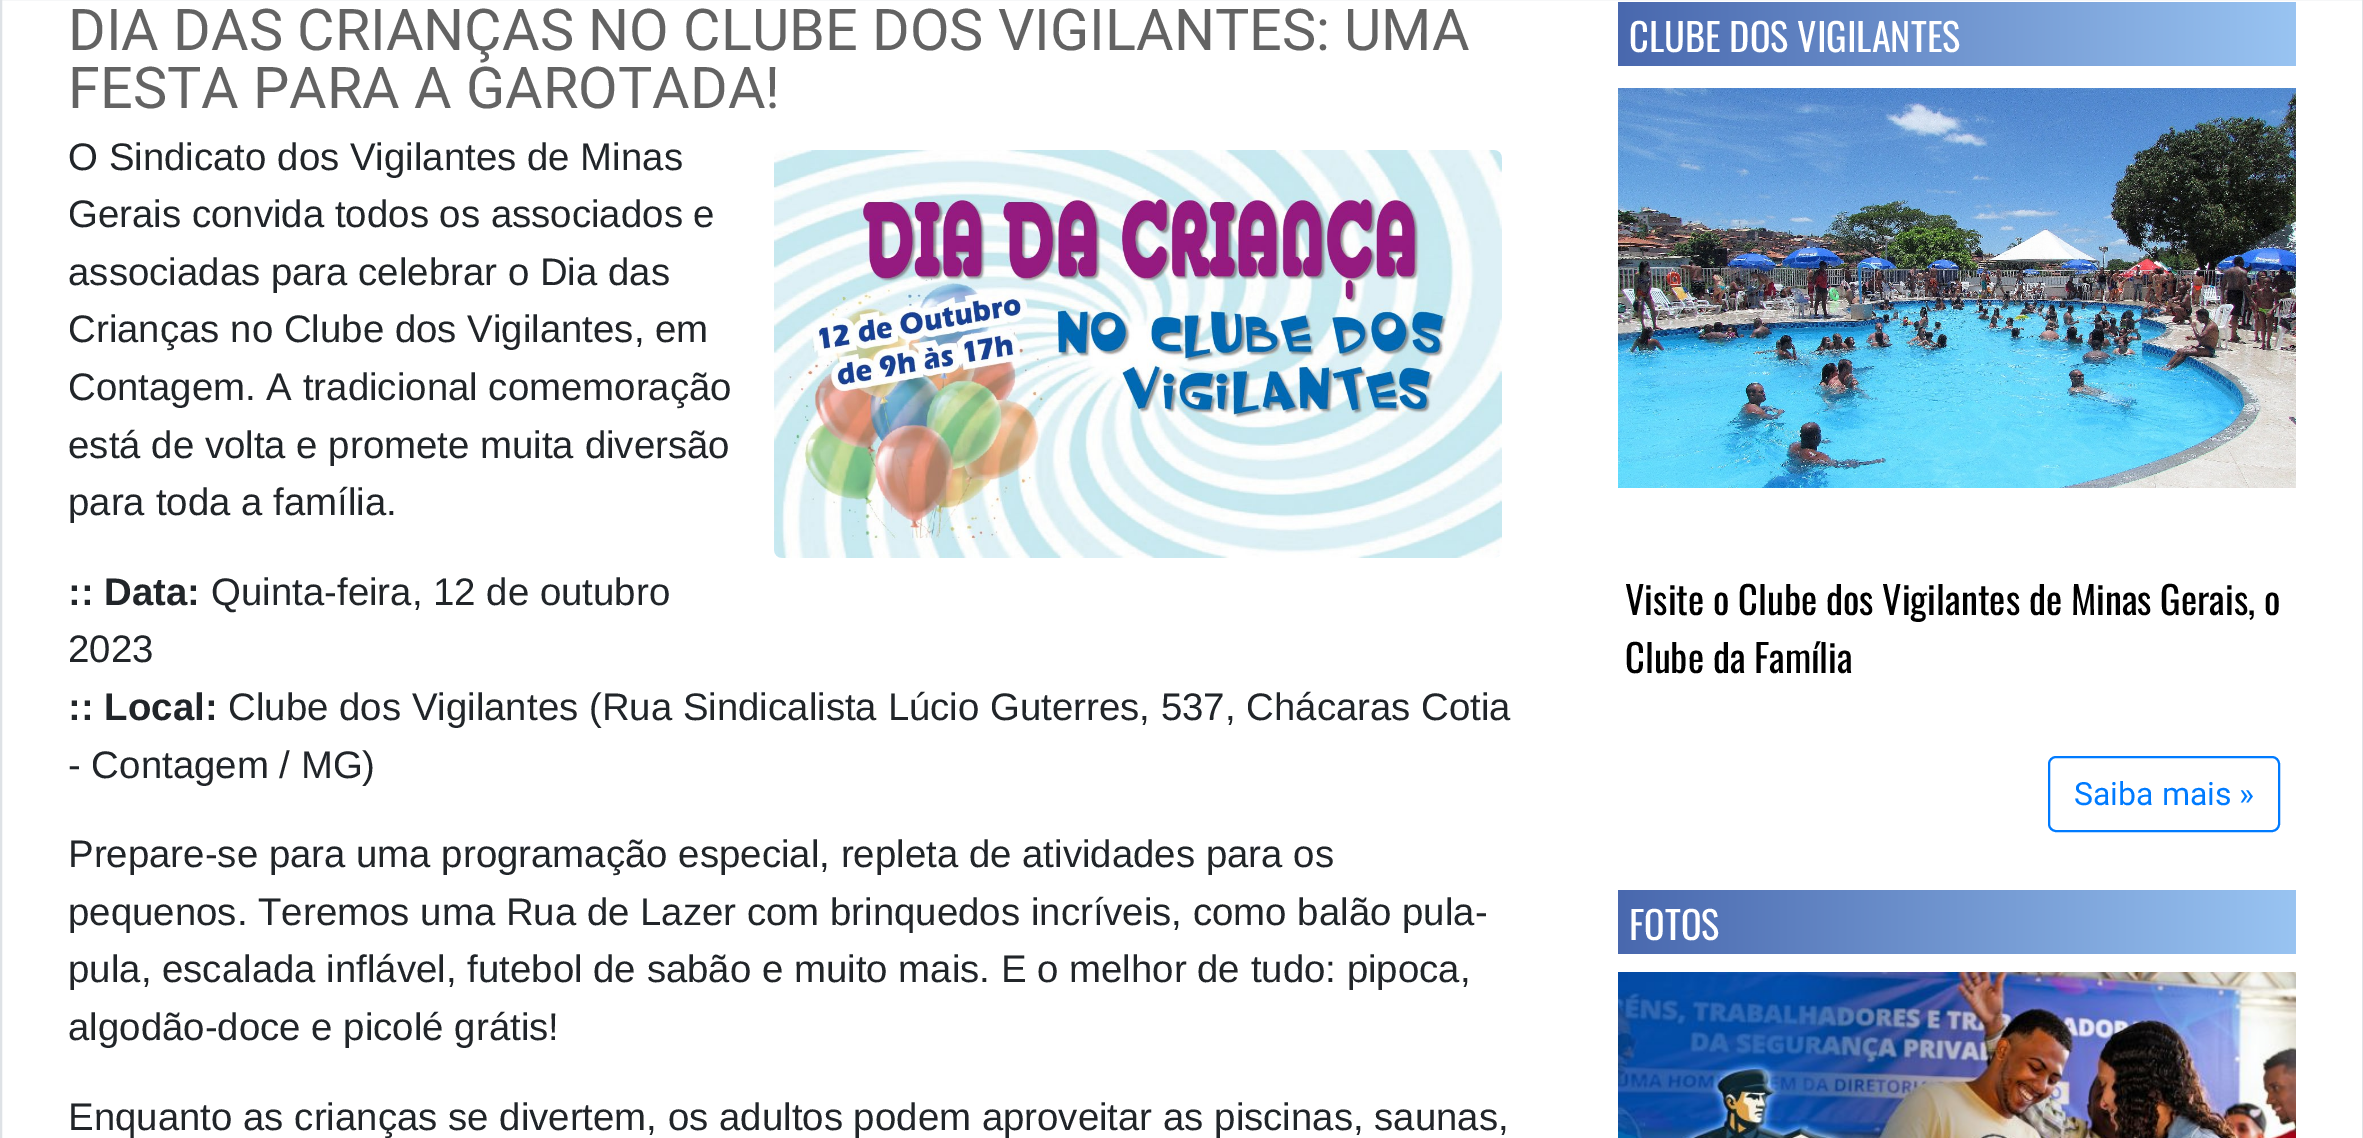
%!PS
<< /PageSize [2363 1138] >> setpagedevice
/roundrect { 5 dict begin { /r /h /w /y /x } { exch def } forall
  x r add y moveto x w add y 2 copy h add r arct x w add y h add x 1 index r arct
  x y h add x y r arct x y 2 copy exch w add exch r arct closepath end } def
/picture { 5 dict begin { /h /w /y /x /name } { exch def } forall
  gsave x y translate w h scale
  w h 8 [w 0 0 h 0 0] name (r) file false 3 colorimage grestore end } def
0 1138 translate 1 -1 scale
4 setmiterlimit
1 setgray
0 0 2363 1138 rectfill
0.871 0.886 0.902 setrgbcolor
2 setlinewidth
1 -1 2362 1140 rectstroke
/Roboto-Regular [57.6 0 0 -57.6 0 0] selectfont
0.388 setgray
68 50 moveto (DIA DAS CRIANÇAS NO CLUBE DOS VIGILANTES: UMA) show
68 108 moveto (FESTA PARA A GAROTADA!) show
/LiberationSans-Regular [38.4 0 0 -38.4 0 0] selectfont
0.129 0.145 0.161 setrgbcolor
68 170 moveto (O Sindicato dos Vigilantes de Minas) show
68 227 moveto (Gerais convida todos os associados e) show
68 285 moveto (associadas para celebrar o Dia das) show
68 342 moveto (Crianças no Clube dos Vigilantes, em) show
68 400 moveto (Contagem. A tradicional comemoração) show
68 458 moveto (está de volta e promete muita diversão) show
68 515 moveto (para toda a família.) show
(img1.rgb) 774 150 728 408 picture
/LiberationSans-Bold [38.4 0 0 -38.4 0 0] selectfont
68 605 moveto (:: Data:) show
/LiberationSans-Regular [38.4 0 0 -38.4 0 0] selectfont
211 605 moveto (Quinta-feira, 12 de outubro) show
68 662 moveto (2023) show
/LiberationSans-Bold [38.4 0 0 -38.4 0 0] selectfont
68 720 moveto (:: Local:) show
/LiberationSans-Regular [38.4 0 0 -38.4 0 0] selectfont
228 720 moveto (Clube dos Vigilantes \(Rua Sindicalista Lúcio Guterres, 537, Chácaras Cotia) show
68 778 moveto (- Contagem / MG\)) show
68 867 moveto (Prepare-se para uma programação especial, repleta de atividades para os) show
68 925 moveto (pequenos. Teremos uma Rua de Lazer com brinquedos incríveis, como balão pula-) show
68 982 moveto (pula, escalada inflável, futebol de sabão e muito mais. E o melhor de tudo: pipoca,) show
68 1040 moveto (algodão-doce e picolé grátis!) show
68 1130 moveto (Enquanto as crianças se divertem, os adultos podem aproveitar as piscinas, saunas,) show
gsave newpath 1618 2 moveto 2296 2 lineto 2296 66 lineto 1618 66 lineto closepath clip newpath
<< /ShadingType 2 /ColorSpace /DeviceRGB /Coords [1618 34 2296 34] /Extend [true true] /Function << /FunctionType 2 /Domain [0 1] /C0 [0.286 0.408 0.682] /C1 [0.6 0.769 0.949] /N 1 >> >> shfill grestore
/Oswald-Regular [38.4 0 0 -38.4 0 0] selectfont
1 setgray
1629 52 moveto (CLUBE DOS VIGILANTES) show
(img2.rgb) 1618 88 678 400 picture
0 setgray
1625 615 moveto (Visite o Clube dos Vigilantes de Minas Gerais, o) show
1625 673 moveto (Clube da Família) show
0 0.482 1 setrgbcolor
2049 757 230 74 7 roundrect stroke
/Roboto-Regular [32 0 0 -32 0 0] selectfont
2074 805 moveto (Saiba mais ») show
gsave newpath 1618 890 moveto 2296 890 lineto 2296 954 lineto 1618 954 lineto closepath clip newpath
<< /ShadingType 2 /ColorSpace /DeviceRGB /Coords [1618 922 2296 922] /Extend [true true] /Function << /FunctionType 2 /Domain [0 1] /C0 [0.286 0.408 0.682] /C1 [0.6 0.769 0.949] /N 1 >> >> shfill grestore
/Oswald-Regular [38.4 0 0 -38.4 0 0] selectfont
1 setgray
1629 940 moveto (FOTOS) show
(img3.rgb) 1618 972 678 166 picture
showpage
